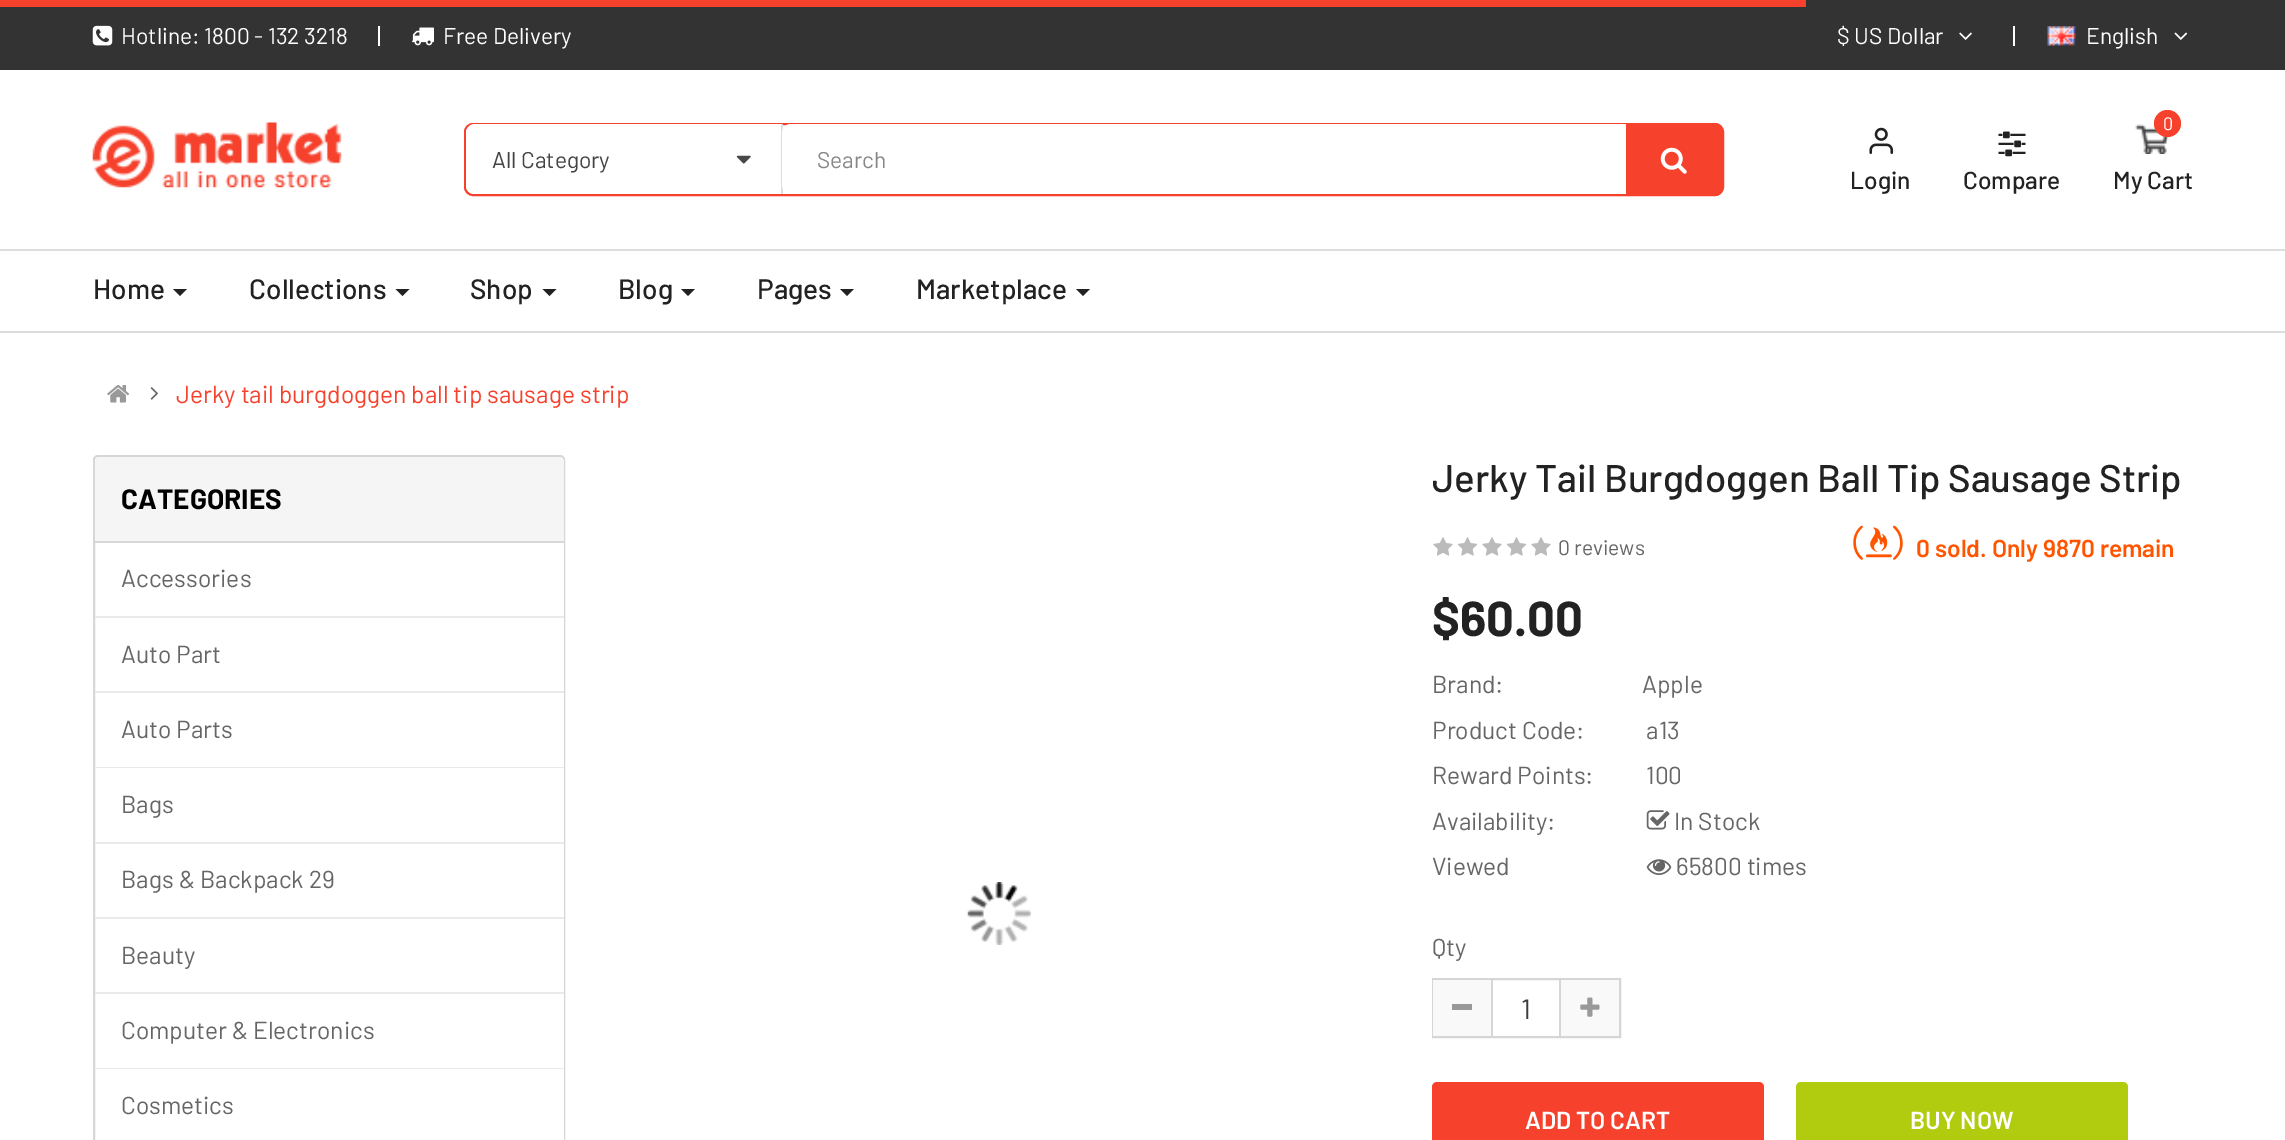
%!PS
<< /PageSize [2285 1140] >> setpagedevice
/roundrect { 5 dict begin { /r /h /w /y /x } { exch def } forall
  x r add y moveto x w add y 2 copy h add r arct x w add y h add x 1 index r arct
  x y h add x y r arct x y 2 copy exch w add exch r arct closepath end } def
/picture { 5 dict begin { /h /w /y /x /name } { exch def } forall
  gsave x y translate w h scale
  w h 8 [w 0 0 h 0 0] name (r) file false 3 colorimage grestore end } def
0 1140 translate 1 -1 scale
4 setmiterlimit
1 setgray
0 0 2285 1140 rectfill
0.2 setgray
0 0 2285 70 rectfill
0.965 0.255 0.176 setrgbcolor
0 0 1806 7 rectfill
0.867 setgray
0 331 2285 2 rectfill
(img1.rgb) 92 25 21 21 picture
/Barlow-Regular [22.75 0 0 -22.75 0 0] selectfont
1 setgray
121 44 moveto (Hotline: 1800 - 132 3218) show
378 26 2 20 rectfill
(img2.rgb) 412 27 22 19 picture
443 44 moveto (Free Delivery) show
1837 44 moveto ($ US Dollar) show
(img3.rgb) 1959 32 13 8 picture
2013 26 2 20 rectfill
(img4.rgb) 2047 26 29 20 picture
2086 44 moveto (English) show
(img5.rgb) 2174 32 14 8 picture
0.867 setgray
0 249 2285 2 rectfill
(img6.rgb) 92 122 250 66 picture
0.965 0.255 0.176 setrgbcolor
2 setlinewidth
465 124 1258 71 8 roundrect stroke
1 setgray
newpath 475 124 moveto 782 124 lineto 782 194 lineto 475 194 lineto 470 194 466 190 466 185 curveto 466 133 lineto 466 128 470 124 475 124 curveto closepath fill
0.867 setgray
781 124 2 70 rectfill
0.267 setgray
492 168 moveto (All Category) show
(img7.rgb) 736 155 15 9 picture
1 setgray
782 124 940 70 9 roundrect fill
0.533 setgray
817 168 moveto (Search) show
0.965 0.255 0.176 setrgbcolor
newpath 1626 124 moveto 1715 124 lineto 1719 124 1722 127 1722 131 curveto 1722 189 lineto 1722 193 1719 196 1715 196 curveto 1626 196 lineto closepath fill
(img8.rgb) 1660 147 27 27 picture
(img9.rgb) 1869 127 25 27 picture
/Barlow-Medium [24.5 0 0 -24.5 0 0] selectfont
0.133 setgray
1850 189 moveto (Login) show
(img10.rgb) 1998 131 28 26 picture
1963 189 moveto (Compare) show
(img11.rgb) 2135 124 34 30 picture
0.965 0.255 0.176 setrgbcolor
newpath 2167.5 123.5 13.5 0 360 arc closepath fill
/Barlow-Regular [18 0 0 -18 0 0] selectfont
1 setgray
2163 130 moveto (0) show
/Barlow-Medium [24.5 0 0 -24.5 0 0] selectfont
0.133 setgray
2113 189 moveto (My Cart) show
/Barlow-Medium [28 0 0 -28 0 0] selectfont
93 299 moveto (Home) show
newpath 173 289 moveto 187 289 lineto 180 296 lineto closepath fill
249 299 moveto (Collections) show
newpath 395.5 289 moveto 409.5 289 lineto 402.5 296 lineto closepath fill
470 299 moveto (Shop) show
newpath 542.5 289 moveto 556.5 289 lineto 549.5 296 lineto closepath fill
618 299 moveto (Blog) show
newpath 681 289 moveto 695 289 lineto 688 296 lineto closepath fill
757 299 moveto (Pages) show
newpath 840 289 moveto 854 289 lineto 847 296 lineto closepath fill
916 299 moveto (Marketplace) show
newpath 1076 289 moveto 1090 289 lineto 1083 296 lineto closepath fill
(img12.rgb) 107 385 23 18 picture
(img13.rgb) 150 387 8 13 picture
/Barlow-Regular [24.5 0 0 -24.5 0 0] selectfont
0.965 0.255 0.176 setrgbcolor
176 403 moveto (Jerky tail burgdoggen ball tip sausage strip) show
0.843 setgray
94 456 470 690 4 roundrect stroke
0.961 setgray
newpath 99 457 moveto 560 457 lineto 562 457 564 459 564 461 curveto 564 543 lineto 95 543 lineto 95 461 lineto 95 459 97 457 99 457 curveto closepath fill
0.843 setgray
95 541 469 2 rectfill
/Barlow-Bold [28 0 0 -28 0 0] selectfont
0 setgray
121 509 moveto (CATEGORIES) show
1 setgray
563 543 1 73 rectfill
0.918 setgray
95 616 469 2 rectfill
/Barlow-Regular [24.5 0 0 -24.5 0 0] selectfont
0.4 setgray
121 587 moveto (Accessories) show
1 setgray
563 618 1 73 rectfill
0.918 setgray
95 691 469 2 rectfill
0.4 setgray
121 663 moveto (Auto Part) show
1 setgray
563 693 1 74 rectfill
0.918 setgray
95 767 469 1 rectfill
0.4 setgray
121 738 moveto (Auto Parts) show
1 setgray
563 768 1 74 rectfill
0.918 setgray
95 842 469 2 rectfill
0.4 setgray
121 813 moveto (Bags) show
1 setgray
563 844 1 73 rectfill
0.918 setgray
95 917 469 2 rectfill
0.4 setgray
121 888 moveto (Bags & Backpack 29) show
1 setgray
563 919 1 73 rectfill
0.918 setgray
95 992 469 2 rectfill
0.4 setgray
121 964 moveto (Beauty) show
1 setgray
563 994 1 74 rectfill
0.918 setgray
95 1068 469 1 rectfill
0.4 setgray
121 1039 moveto (Computer & Electronics) show
1 setgray
563 1069 1 71 rectfill
0.4 setgray
121 1114 moveto (Cosmetics) show
(img14.rgb) 967 882 64 63 picture
/Barlow-Medium [38.5 0 0 -38.5 0 0] selectfont
0.133 setgray
1432 492 moveto (Jerky Tail Burgdoggen Ball Tip Sausage Strip) show
(img15.rgb) 1433 537 20 19 picture
(img16.rgb) 1457 537 21 19 picture
(img15.rgb) 1482 537 20 19 picture
(img16.rgb) 1506 537 21 19 picture
(img15.rgb) 1531 537 20 19 picture
/Barlow-Regular [21 0 0 -21 0 0] selectfont
0.4 setgray
1558 555 moveto (0 reviews) show
(img17.rgb) 1853 525 50 35 picture
/Barlow-SemiBold [24.5 0 0 -24.5 0 0] selectfont
1 0.333 0 setrgbcolor
1916 557 moveto (0 sold. Only 9870 remain) show
/Barlow-Bold [49 0 0 -49 0 0] selectfont
0.133 setgray
1432 636 moveto ($60.00) show
/Barlow-Regular [24.5 0 0 -24.5 0 0] selectfont
0.4 setgray
1432 693 moveto (Brand:) show
1642 693 moveto (Apple) show
1432 739 moveto (Product Code:) show
1646 739 moveto (a13) show
1432 784 moveto (Reward Points:) show
1646 784 moveto (100) show
1432 830 moveto (Availability:) show
(img18.rgb) 1646 810 24 20 picture
1674 830 moveto (In Stock) show
1432 875 moveto (Viewed) show
(img19.rgb) 1646 859 26 16 picture
1676 875 moveto (65800 times) show
1432 956 moveto (Qty) show
0.839 setgray
1433 979 187 58 rectstroke
0.976 setgray
1433 980 58 56 rectfill
0.6 setgray
1452 1004 20 6 rectfill
0.839 setgray
1559 980 2 56 rectfill
1491 980 2 56 rectfill
/Barlow-Regular [28 0 0 -28 0 0] selectfont
0.239 setgray
1521 1019 moveto (1) show
0.976 setgray
1561 980 58 56 rectfill
(img20.rgb) 1580 997 20 20 picture
0.965 0.255 0.176 setrgbcolor
1432 1082 332 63 5 roundrect fill
/Barlow-SemiBold [24.5 0 0 -24.5 0 0] selectfont
1 setgray
1525 1129 moveto (ADD TO CART) show
0.694 0.8 0.055 setrgbcolor
1796 1082 332 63 5 roundrect fill
1 setgray
1910 1129 moveto (BUY NOW) show
showpage
